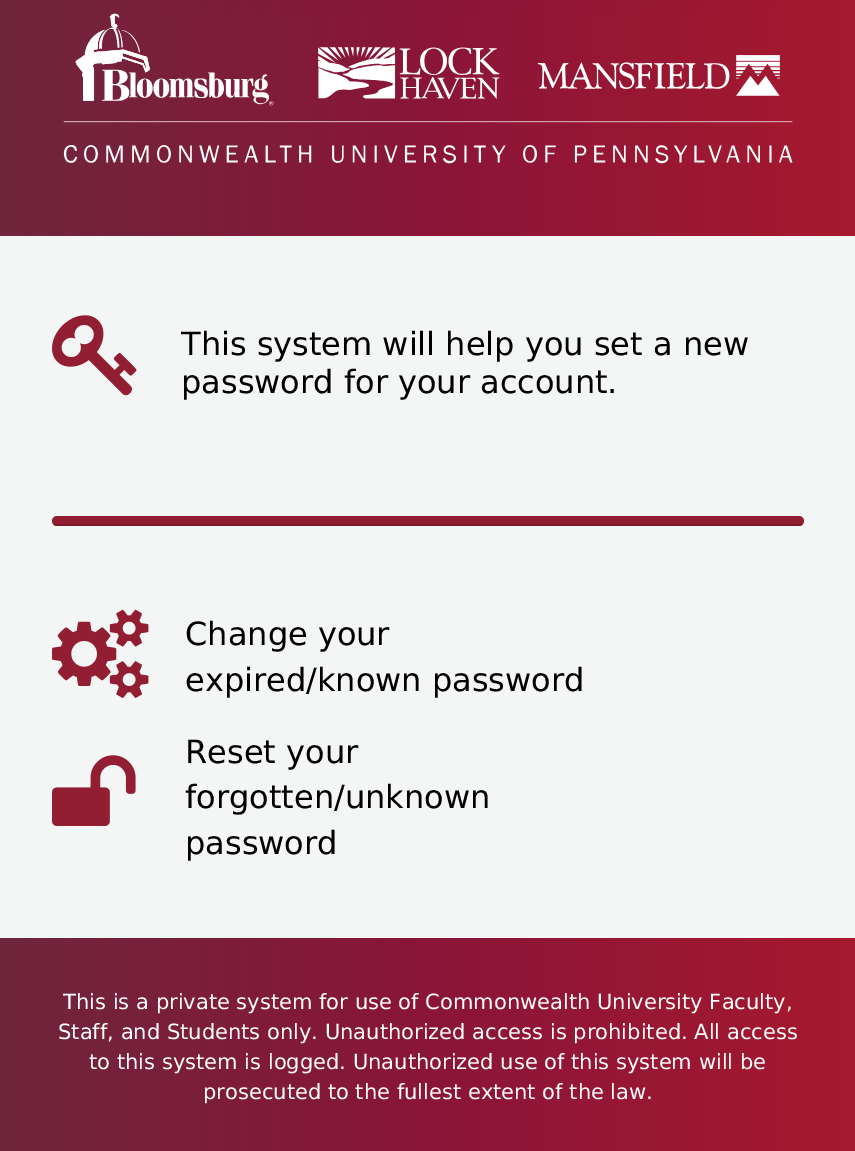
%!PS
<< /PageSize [855 1151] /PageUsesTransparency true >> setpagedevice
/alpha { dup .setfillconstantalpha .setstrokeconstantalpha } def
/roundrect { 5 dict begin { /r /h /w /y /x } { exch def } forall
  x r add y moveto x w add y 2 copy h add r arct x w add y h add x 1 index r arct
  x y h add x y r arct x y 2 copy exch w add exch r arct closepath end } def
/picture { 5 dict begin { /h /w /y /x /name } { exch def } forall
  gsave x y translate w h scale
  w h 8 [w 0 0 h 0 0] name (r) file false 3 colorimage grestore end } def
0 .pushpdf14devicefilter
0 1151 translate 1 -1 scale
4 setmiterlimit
1 setgray
0 0 855 1151 rectfill
gsave newpath 0 0 moveto 855 0 lineto 855 1151 lineto 0 1151 lineto closepath clip newpath
<< /ShadingType 2 /ColorSpace /DeviceRGB /Coords [0 552 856 552] /Extend [true true] /Function << /FunctionType 3 /Domain [0 1] /Functions [<< /FunctionType 2 /Domain [0 1] /C0 [0.435 0.149 0.239] /C1 [0.541 0.082 0.22] /N 1 >> << /FunctionType 2 /Domain [0 1] /C0 [0.541 0.082 0.22] /C1 [0.651 0.098 0.18] /N 1 >>] /Bounds [0.5] /Encode [0 1 0 1] >> >> shfill grestore
(img1.rgb) 63 13 730 151 picture
0.957 0.961 0.961 setrgbcolor
0 236 855 702 rectfill
(img2.rgb) 52 315 85 81 picture
/DejaVuSans-Regular [32 0 0 -32 0 0] selectfont
0 setgray
181 355 moveto (This system will help you set a new) show
181 393 moveto (password for your account.) show
0.573 0.118 0.2 setrgbcolor
52 516 752 10 5 roundrect fill
gsave
52 516 752 10 5 roundrect clip newpath
0.15 alpha
0 setgray
52 524 752 2 rectfill
grestore
(img3.rgb) 52 609 97 89 picture
0 setgray
185 645 moveto (Change your) show
185 691 moveto (expired/known password) show
(img4.rgb) 52 755 84 71 picture
185 763 moveto (Reset your) show
185 808 moveto (forgotten/unknown) show
185 854 moveto (password) show
/DejaVuSans-Regular [21 0 0 -21 0 0] selectfont
1 setgray
63 1009 moveto (This is a private system for use of Commonwealth University Faculty,) show
58 1039 moveto (Staff, and Students only. Unauthorized access is prohibited. All access) show
89 1069 moveto (to this system is logged. Unauthorized use of this system will be) show
203 1099 moveto (prosecuted to the fullest extent of the law.) show
.poppdf14devicefilter showpage
